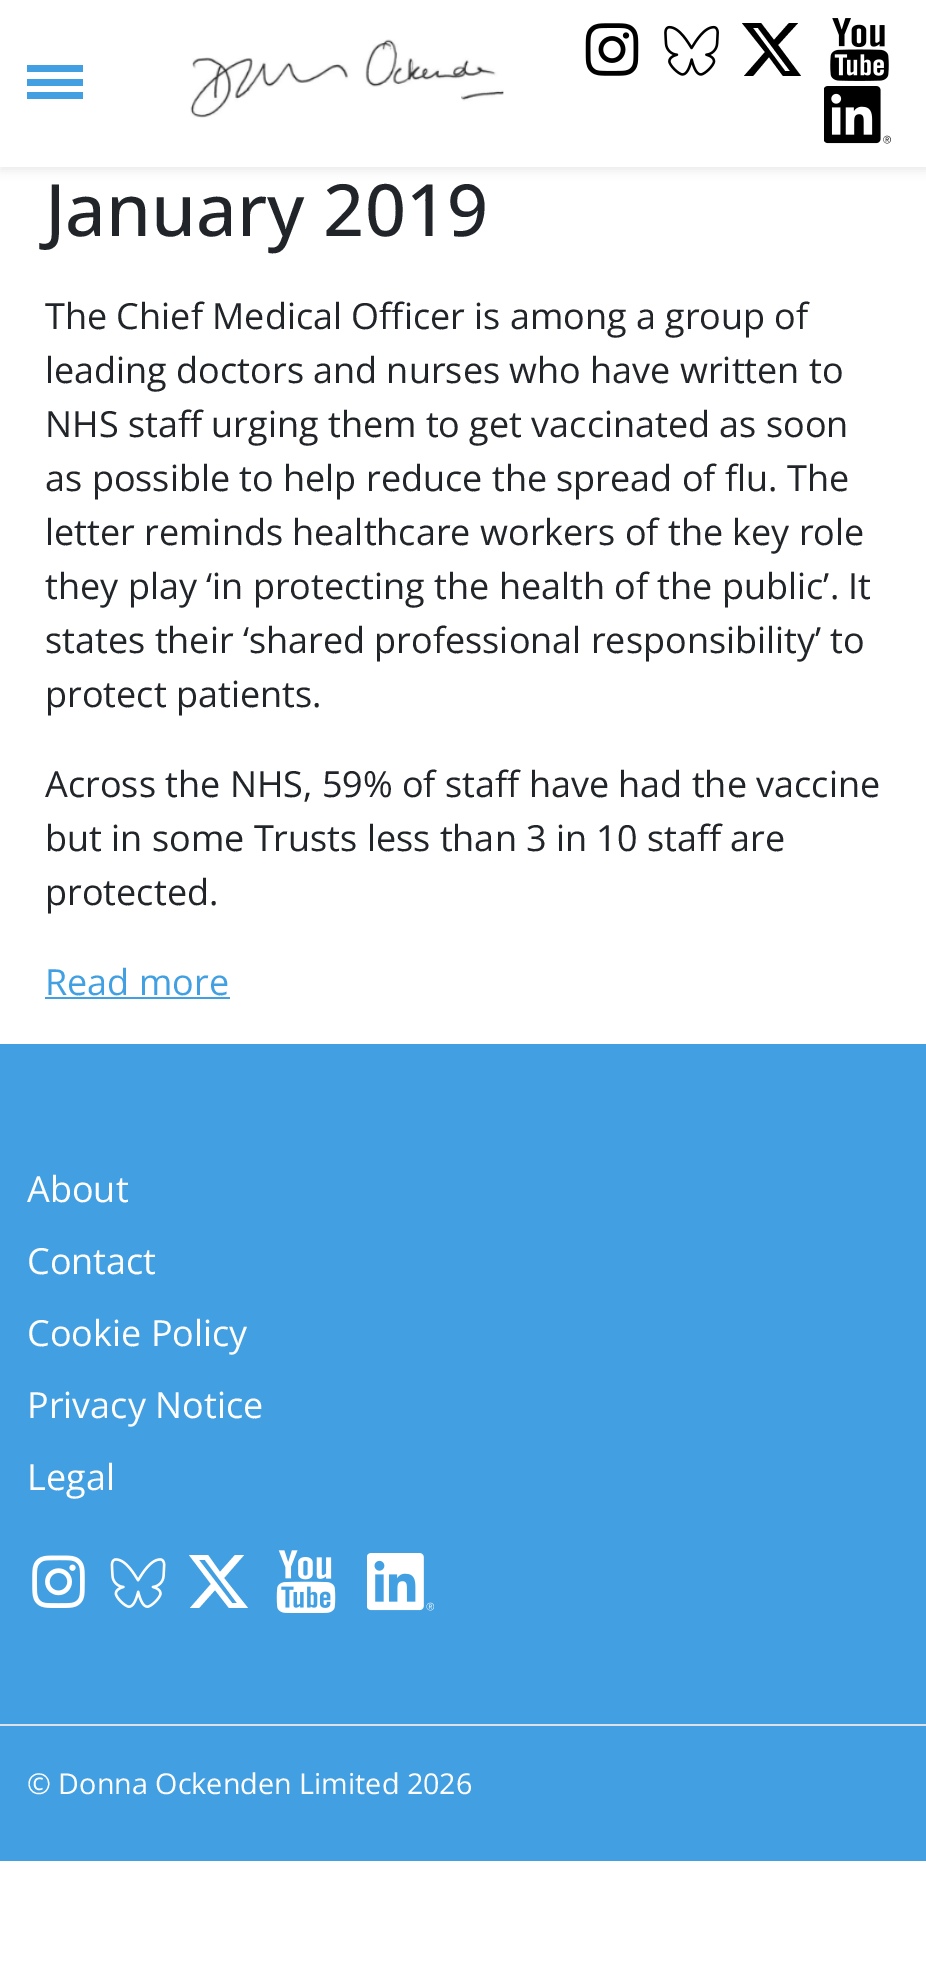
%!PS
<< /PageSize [926 1980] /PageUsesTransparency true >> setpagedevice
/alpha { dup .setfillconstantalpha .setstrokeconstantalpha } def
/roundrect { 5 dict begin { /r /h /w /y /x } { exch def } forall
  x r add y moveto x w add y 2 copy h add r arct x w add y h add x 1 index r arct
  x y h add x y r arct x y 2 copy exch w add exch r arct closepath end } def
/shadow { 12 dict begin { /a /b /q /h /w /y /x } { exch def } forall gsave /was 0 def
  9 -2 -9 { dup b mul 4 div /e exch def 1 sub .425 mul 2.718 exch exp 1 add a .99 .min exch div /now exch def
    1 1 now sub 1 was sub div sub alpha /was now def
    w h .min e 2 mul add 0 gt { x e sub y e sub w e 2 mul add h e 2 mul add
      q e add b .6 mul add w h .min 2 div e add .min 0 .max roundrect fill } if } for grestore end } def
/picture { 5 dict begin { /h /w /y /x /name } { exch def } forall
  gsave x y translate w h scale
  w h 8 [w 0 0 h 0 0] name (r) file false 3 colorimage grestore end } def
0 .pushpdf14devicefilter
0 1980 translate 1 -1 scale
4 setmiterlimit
1 setgray
0 0 926 1980 rectfill
0 setgray
0 5 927 166 0 4.5 0.07 shadow
1 setgray
0 0 926 167 rectfill
0.259 0.627 0.886 setrgbcolor
27 65 56 7 rectfill
27 79 56 7 rectfill
27 92 56 7 rectfill
(img1.rgb) 190 39 314 79 picture
(img2.rgb) 585 23 54 53 picture
(img3.rgb) 664 25 55 51 picture
0 setgray
newpath 789 23 moveto 798 23 lineto 778 45 lineto 801 76 lineto 783 76 lineto 769 57 lineto 753 76 lineto 744 76 lineto 765 52 lineto 742 23 lineto 761 23 lineto 774 40 lineto closepath 785 71 moveto 790 71 lineto 758 28 lineto 753 28 lineto closepath fill
(img4.rgb) 830 18 59 63 picture
(img5.rgb) 824 86 67 58 picture
/OpenSans-Medium [72 0 0 -72 0 0] selectfont
0.129 0.145 0.161 setrgbcolor
45 236 moveto (January 2019) show
/OpenSans-Regular [36 0 0 -36 0 0] selectfont
45 329 moveto (The Chief Medical Officer is among a group of) show
45 383 moveto (leading doctors and nurses who have written to) show
45 437 moveto (NHS staff urging them to get vaccinated as soon) show
45 491 moveto (as possible to help reduce the spread of flu. The) show
45 545 moveto (letter reminds healthcare workers of the key role) show
45 599 moveto (they play ‘in protecting the health of the public’. It) show
45 653 moveto (states their ‘shared professional responsibility’ to) show
45 707 moveto (protect patients.) show
45 797 moveto (Across the NHS, 59% of staff have had the vaccine) show
45 851 moveto (but in some Trusts less than 3 in 10 staff are) show
45 905 moveto (protected.) show
0.259 0.627 0.886 setrgbcolor
45 995 moveto (Read more) show
45 997 185 2 rectfill
0 1044 926 680 rectfill
1 setgray
27 1202 moveto (About) show
27 1274 moveto (Contact) show
27 1346 moveto (Cookie Policy) show
27 1418 moveto (Privacy Notice) show
27 1490 moveto (Legal) show
(img6.rgb) 32 1555 53 53 picture
(img7.rgb) 110 1558 56 50 picture
newpath 235 1555 moveto 244 1555 lineto 224 1578 lineto 248 1608 lineto 229 1608 lineto 215 1590 lineto 199 1608 lineto 190 1608 lineto 211 1584 lineto 189 1555 lineto 208 1555 lineto 220 1572 lineto closepath 232 1603 moveto 237 1603 lineto 205 1560 lineto 199 1560 lineto closepath fill
(img8.rgb) 276 1550 60 63 picture
(img9.rgb) 367 1553 67 58 picture
0.259 0.627 0.886 setrgbcolor
0 1726 926 135 rectfill
0.871 0.886 0.902 setrgbcolor
0 1724 926 2 rectfill
/OpenSans-Regular [28.75 0 0 -28.75 0 0] selectfont
1 setgray
27 1794 moveto (© Donna Ockenden Limited 2026) show
.poppdf14devicefilter showpage
